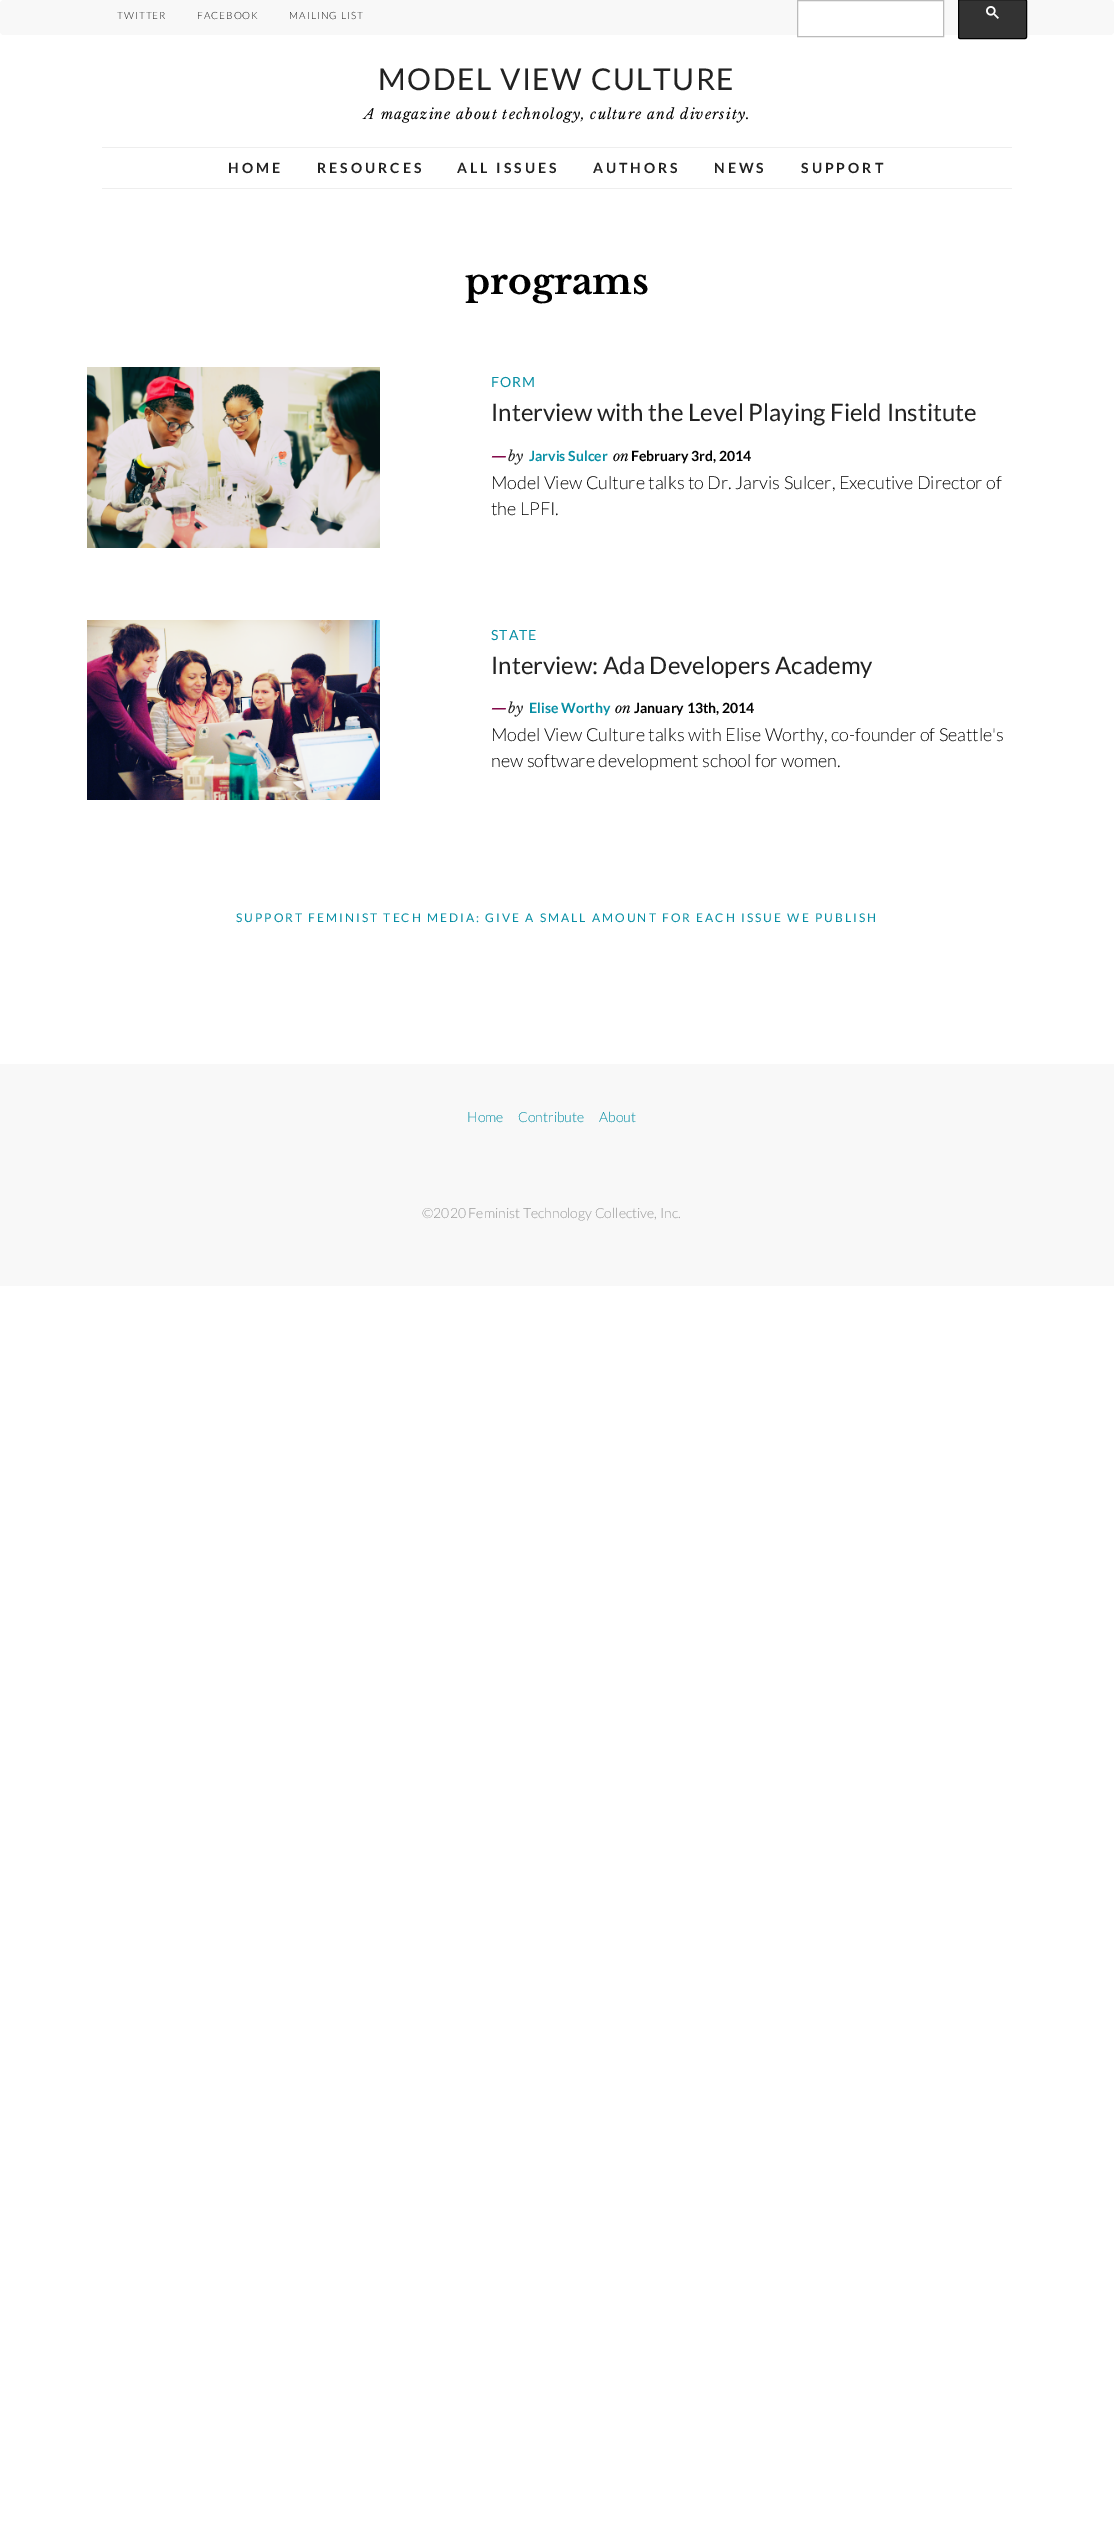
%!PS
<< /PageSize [1114 2533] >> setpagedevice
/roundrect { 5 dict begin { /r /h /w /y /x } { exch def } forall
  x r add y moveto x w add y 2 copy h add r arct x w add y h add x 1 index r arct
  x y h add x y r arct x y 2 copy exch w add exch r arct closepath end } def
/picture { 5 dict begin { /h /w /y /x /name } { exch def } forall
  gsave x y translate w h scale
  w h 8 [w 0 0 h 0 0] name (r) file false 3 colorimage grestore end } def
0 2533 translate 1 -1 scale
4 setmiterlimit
1 setgray
0 0 1114 2533 rectfill
0.973 setgray
0 0 1114 35 4 roundrect fill
/Lato-Light [10 0 0 -10 0 0] selectfont
0.133 setgray
117 19 moveto 1 0 (TWITTER) ashow
197 19 moveto 1 0 (FACEBOOK) ashow
289 19 moveto 1 0 (MAILING LIST) ashow
1 setgray
798 1 145 34 rectfill
0.733 setgray
797.5 0.5 146 36 rectstroke
0.2 setgray
958.5 -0.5 68 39 1.5 roundrect gsave fill grestore
0 setgray
stroke
(img1.rgb) 986 6 13 13 picture
/Lato-Regular [30 0 0 -30 0 0] selectfont
0.133 setgray
378 90 moveto 1.5 0 (MODEL VIEW CULTURE) ashow
/LibreBaskerville-Italic [14 0 0 -14 0 0] selectfont
0 setgray
364 119 moveto 1 0 (A magazine about technology, culture and diversity.) ashow
0.933 setgray
102 147 910 1 rectfill
102 188 910 1 rectfill
/Lato-Bold [14 0 0 -14 0 0] selectfont
0.133 setgray
228 173 moveto 3 0 (HOME) ashow
317 173 moveto 3 0 (RESOURCES) ashow
457 173 moveto 3 0 (ALL ISSUES) ashow
593 173 moveto 3 0 (AUTHORS) ashow
714 173 moveto 3 0 (NEWS) ashow
801 173 moveto 3 0 (SUPPORT) ashow
/LibreBaskerville-Bold [36 0 0 -36 0 0] selectfont
0 setgray
465 294 moveto (programs) show
(img2.rgb) 87 367 293 181 picture
/Lato-Regular [14 0 0 -14 0 0] selectfont
0.031 0.561 0.647 setrgbcolor
491 387 moveto 1 0 (FORM) ashow
/Lato-Regular [24 0 0 -24 0 0] selectfont
0.133 setgray
491 421 moveto (Interview with the Level Playing Field Institute) show
/LibreBaskerville-BoldItalic [14 0 0 -14 0 0] selectfont
0.518 0.043 0.294 setrgbcolor
491 461 moveto 1 0 (—) ashow
/LibreBaskerville-Italic [14 0 0 -14 0 0] selectfont
0.133 setgray
508 461 moveto 1 0 (by) ashow
/Lato-Bold [14 0 0 -14 0 0] selectfont
0.031 0.561 0.647 setrgbcolor
529 461 moveto (Jarvis Sulcer) show
/LibreBaskerville-Italic [14 0 0 -14 0 0] selectfont
0 setgray
613 461 moveto (on) show
/Lato-Bold [14 0 0 -14 0 0] selectfont
631 461 moveto (February 3rd, 2014) show
/Lato-Light [18 0 0 -18 0 0] selectfont
491 489 moveto (Model View Culture talks to Dr. Jarvis Sulcer, Executive Director of) show
491 515 moveto (the LPFI.) show
(img3.rgb) 87 620 293 180 picture
/Lato-Regular [14 0 0 -14 0 0] selectfont
0.031 0.561 0.647 setrgbcolor
491 640 moveto 1 0 (STATE) ashow
/Lato-Regular [24 0 0 -24 0 0] selectfont
0.133 setgray
491 674 moveto (Interview: Ada Developers Academy) show
/LibreBaskerville-BoldItalic [14 0 0 -14 0 0] selectfont
0.518 0.043 0.294 setrgbcolor
491 713 moveto 1 0 (—) ashow
/LibreBaskerville-Italic [14 0 0 -14 0 0] selectfont
0.133 setgray
508 713 moveto 1 0 (by) ashow
/Lato-Bold [14 0 0 -14 0 0] selectfont
0.031 0.561 0.647 setrgbcolor
529 713 moveto (Elise Worthy) show
/LibreBaskerville-Italic [14 0 0 -14 0 0] selectfont
0 setgray
615 713 moveto (on) show
/Lato-Bold [14 0 0 -14 0 0] selectfont
634 713 moveto (January 13th, 2014) show
/Lato-Light [18 0 0 -18 0 0] selectfont
491 741 moveto (Model View Culture talks with Elise Worthy, co-founder of Seattle's) show
491 767 moveto (new software development school for women.) show
/Lato-Regular [12 0 0 -12 0 0] selectfont
0.031 0.561 0.647 setrgbcolor
236 922 moveto 2 0 (SUPPORT FEMINIST TECH MEDIA: GIVE A SMALL AMOUNT FOR EACH ISSUE WE PUBLISH) ashow
0.973 setgray
0 1064 1114 222 rectfill
/Lato-Light [14 0 0 -14 0 0] selectfont
0.031 0.561 0.647 setrgbcolor
467 1122 moveto (Home) show
518 1122 moveto (Contribute) show
599 1122 moveto (About) show
0.6 setgray
422 1218 moveto (©2020 Feminist Technology Collective, Inc.) show
showpage
